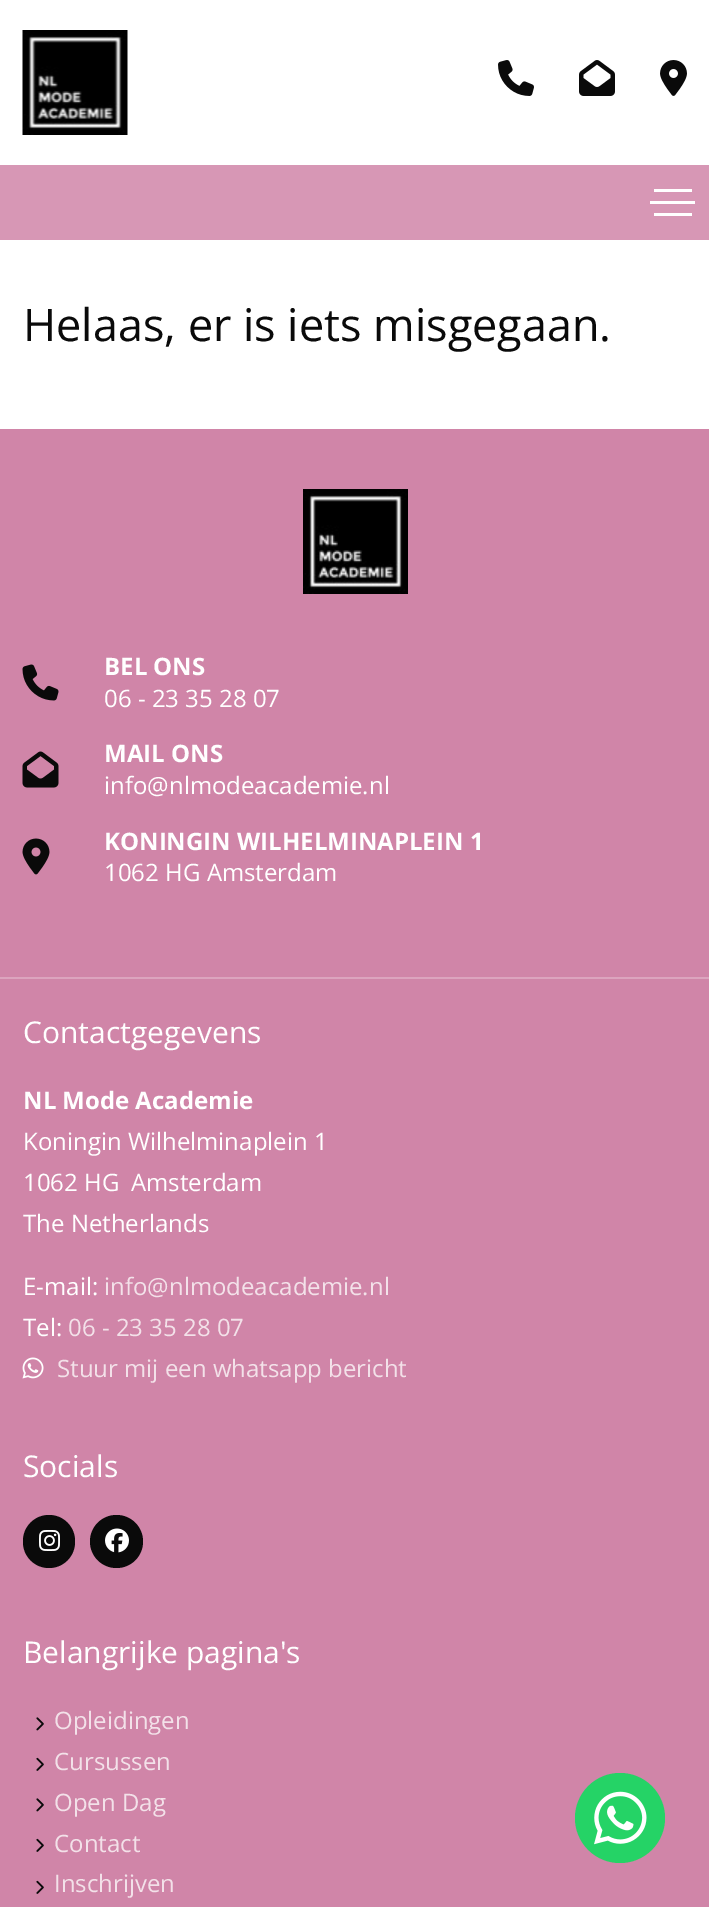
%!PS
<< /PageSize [709 1907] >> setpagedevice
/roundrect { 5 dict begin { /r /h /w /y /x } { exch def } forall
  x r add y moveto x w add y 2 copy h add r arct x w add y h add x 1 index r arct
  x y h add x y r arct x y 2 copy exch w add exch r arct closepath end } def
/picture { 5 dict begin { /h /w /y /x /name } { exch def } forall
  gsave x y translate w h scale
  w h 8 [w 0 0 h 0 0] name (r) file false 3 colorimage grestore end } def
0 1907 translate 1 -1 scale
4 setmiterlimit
1 setgray
0 0 709 1907 rectfill
(img1.rgb) 22 30 106 105 picture
(img2.rgb) 498 60 36 36 picture
(img3.rgb) 579 60 36 36 picture
(img4.rgb) 660 60 27 36 picture
0.843 0.592 0.71 setrgbcolor
0 165 709 75 rectfill
1 setgray
654 189 38 3 rectfill
650 201 45 3 rectfill
654 213 38 3 rectfill
/OpenSans-Regular [45 0 0 -45 0 0] selectfont
0.039 setgray
23 341 moveto (Helaas, er is iets misgegaan.) show
0.816 0.522 0.659 setrgbcolor
0 429 709 548 rectfill
(img5.rgb) 303 489 105 105 picture
(img6.rgb) 22 664 37 37 picture
/OpenSans-Bold [24 0 0 -24 0 0] selectfont
1 setgray
104 675 moveto (BEL ONS) show
/OpenSans-Regular [24 0 0 -24 0 0] selectfont
104 707 moveto (06 - 23 35 28 07) show
(img7.rgb) 22 751 37 37 picture
/OpenSans-Bold [24 0 0 -24 0 0] selectfont
104 762 moveto (MAIL ONS) show
/OpenSans-Regular [24 0 0 -24 0 0] selectfont
104 794 moveto (info@nlmodeacademie.nl) show
(img8.rgb) 22 838 28 37 picture
/OpenSans-Bold [24 0 0 -24 0 0] selectfont
104 850 moveto (KONINGIN WILHELMINAPLEIN 1) show
/OpenSans-Regular [24 0 0 -24 0 0] selectfont
104 881 moveto (1062 HG Amsterdam) show
0.816 0.522 0.659 setrgbcolor
0 979 709 928 rectfill
0.863 0.643 0.745 setrgbcolor
0 977 709 2 rectfill
/OpenSans-Regular [30 0 0 -30 0 0] selectfont
1 setgray
23 1043 moveto (Contactgegevens) show
/OpenSans-Bold [24 0 0 -24 0 0] selectfont
23 1109 moveto (NL Mode Academie) show
/OpenSans-Regular [24 0 0 -24 0 0] selectfont
23 1150 moveto (Koningin Wilhelminaplein 1) show
23 1191 moveto (1062 HG) show
131 1191 moveto (Amsterdam) show
23 1232 moveto (The Netherlands) show
23 1295 moveto (E-mail:) show
0.953 0.882 0.914 setrgbcolor
104 1295 moveto (info@nlmodeacademie.nl) show
1 setgray
23 1336 moveto (Tel:) show
0.953 0.882 0.914 setrgbcolor
68 1336 moveto (06 - 23 35 28 07) show
(img9.rgb) 22 1357 22 22 picture
57 1377 moveto (Stuur mij een whatsapp bericht) show
/OpenSans-Regular [30 0 0 -30 0 0] selectfont
1 setgray
23 1477 moveto (Socials) show
0.039 setgray
23 1515 52 53 26 roundrect fill
(img10.rgb) 39 1530 21 21 picture
newpath 116.5 1541.5 26.5 0 360 arc closepath fill
(img11.rgb) 105 1528 24 25 picture
1 setgray
23 1663 moveto (Belangrijke pagina's) show
(img12.rgb) 36 1717 8 14 picture
/OpenSans-Regular [24 0 0 -24 0 0] selectfont
0.953 0.882 0.914 setrgbcolor
54 1729 moveto (Opleidingen) show
(img13.rgb) 36 1757 8 14 picture
54 1770 moveto (Cursussen) show
(img12.rgb) 36 1798 8 14 picture
54 1811 moveto (Open Dag) show
(img13.rgb) 36 1838 8 14 picture
54 1852 moveto (Contact) show
(img13.rgb) 36 1880 8 14 picture
54 1892 moveto (Inschrijven) show
0.145 0.827 0.4 setrgbcolor
newpath 620 1818 45 0 360 arc closepath fill
(img14.rgb) 594 1791 53 54 picture
showpage
